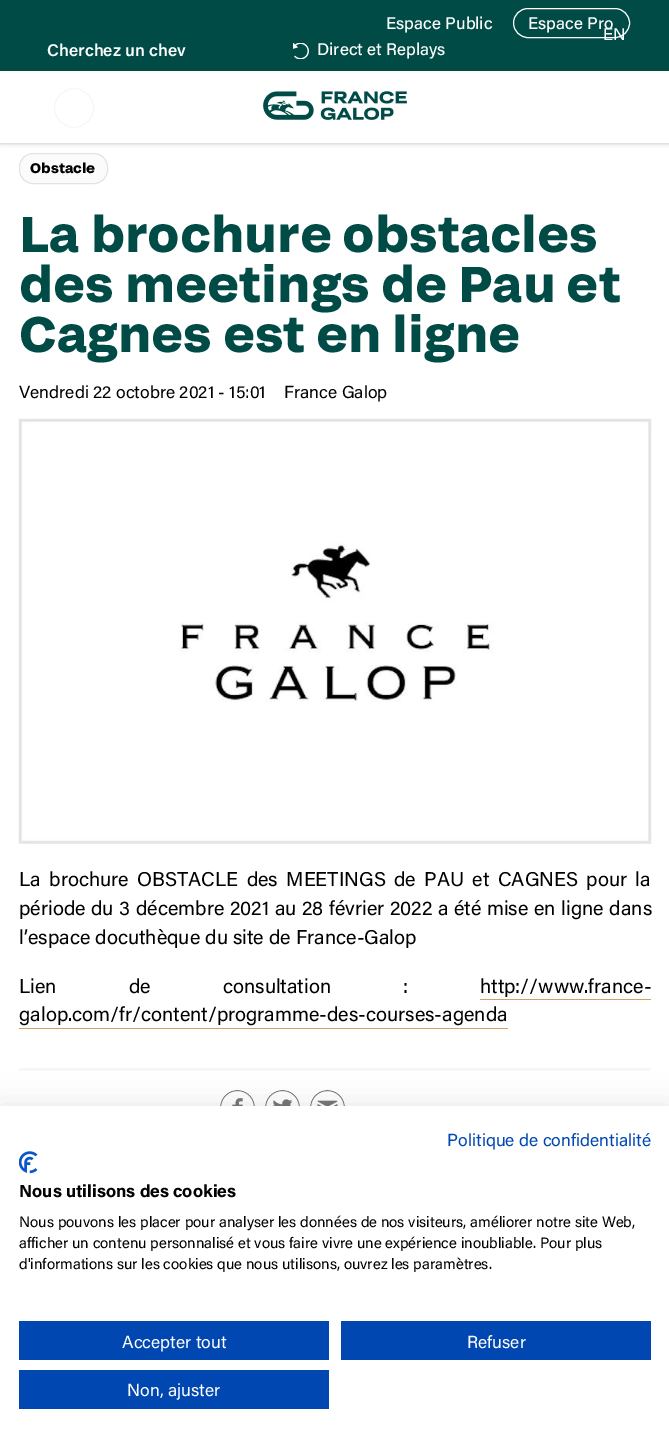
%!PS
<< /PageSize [669 1442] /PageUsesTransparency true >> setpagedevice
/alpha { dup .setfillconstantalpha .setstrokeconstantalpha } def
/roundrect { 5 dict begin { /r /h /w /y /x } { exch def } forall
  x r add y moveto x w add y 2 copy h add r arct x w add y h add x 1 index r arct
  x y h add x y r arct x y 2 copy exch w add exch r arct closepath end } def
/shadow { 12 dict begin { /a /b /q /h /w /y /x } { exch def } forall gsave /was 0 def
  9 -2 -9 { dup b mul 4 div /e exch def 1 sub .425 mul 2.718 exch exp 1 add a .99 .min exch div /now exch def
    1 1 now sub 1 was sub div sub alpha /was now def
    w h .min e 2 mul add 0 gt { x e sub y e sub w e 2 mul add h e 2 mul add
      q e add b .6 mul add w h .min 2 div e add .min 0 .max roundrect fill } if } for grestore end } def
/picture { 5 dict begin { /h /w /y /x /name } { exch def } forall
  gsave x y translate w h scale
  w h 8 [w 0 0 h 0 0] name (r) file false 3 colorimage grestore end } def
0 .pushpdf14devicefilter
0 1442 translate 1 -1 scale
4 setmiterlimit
1 setgray
0 0 669 1442 rectfill
0 setgray
0 0 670 143 0 2.5 0.25 shadow
1 setgray
0 71 669 72 rectfill
0 0.294 0.275 setrgbcolor
0 0 669 71 rectfill
/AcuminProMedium-Medium [17 0 0 -17 0 0] selectfont
1 setgray
386 29 moveto (Espace Public) show
513.5 8.5 116 29 14.5 roundrect stroke
528 29 moveto (Espace Pro) show
/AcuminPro-Regular [17 0 0 -17 0 0] selectfont
603 40 moveto (EN) show
/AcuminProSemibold-SemiBold [17 0 0 -17 0 0] selectfont
47 56 moveto (Cherchez un chev) show
(img1.rgb) 293 43 16 16 picture
/AcuminProMedium-Medium [17 0 0 -17 0 0] selectfont
317 55 moveto (Direct et Replays) show
0.961 0.969 0.969 setrgbcolor
newpath 74 108 19.5 0 360 arc closepath stroke
(img2.rgb) 263 91 144 29 picture
0.984 setgray
19.5 153.5 88 30 13.5 roundrect gsave fill grestore
0.89 setgray
stroke
/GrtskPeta-Bold [14 0 0 -14 0 0] selectfont
0 setgray
30 173 moveto (Obstacle) show
/GrtskPeta-Bold [50 0 0 -50 0 0] selectfont
0 0.294 0.275 setrgbcolor
19 252 moveto (La brochure obstacles) show
19 302 moveto (des meetings de Pau et) show
19 352 moveto (Cagnes est en ligne) show
/AcuminPro-Regular [17.5 0 0 -17.5 0 0] selectfont
0 setgray
19 398 moveto (Vendredi 22 octobre 2021 - 15:01) show
284 398 moveto (France Galop) show
(img3.rgb) 18 418 634 426 picture
/AcuminPro-Regular [20 0 0 -20 0 0] selectfont
19 886 moveto 3.25 0 32 (La brochure OBSTACLE des MEETINGS de PAU et CAGNES pour la) widthshow
19 915 moveto 0.5 0 32 (période du 3 décembre 2021 au 28 février 2022 a été mise en ligne dans) widthshow
19 944 moveto (l’espace docuthèque du site de France-Galop) show
19 993 moveto 67 0 32 (Lien de consultation :) widthshow
480 993 moveto (http://www.france-) show
0.808 0.635 0.392 setrgbcolor
480 999 171 1 rectfill
0 setgray
19 1021 moveto (galop.com/fr/content/programme-des-courses-agenda) show
0.808 0.635 0.392 setrgbcolor
19 1028 489 1 rectfill
0.961 0.969 0.969 setrgbcolor
19 1068 632 3 rectfill
(img4.rgb) 220 1090 35 16 picture
(img5.rgb) 265 1090 35 16 picture
(img6.rgb) 310 1090 35 16 picture
0 setgray
0 1106 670 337 0 15 0.1 shadow
1 setgray
0 1106 669 336 rectfill
/AcuminPro-Regular [17.5 0 0 -17.5 0 0] selectfont
0 0.278 0.698 setrgbcolor
447 1146 moveto (Politique de confidentialité) show
(img7.rgb) 19 1151 19 23 picture
/AcuminPro-Bold [17.5 0 0 -17.5 0 0] selectfont
0 setgray
19 1197 moveto (Nous utilisons des cookies) show
/AcuminPro-Regular [15 0 0 -15 0 0] selectfont
19 1227 moveto (Nous pouvons les placer pour analyser les données de nos visiteurs, améliorer notre site Web,) show
19 1248 moveto (afficher un contenu personnalisé et vous faire vivre une expérience inoubliable. Pour plus) show
19 1269 moveto (d'informations sur les cookies que nous utilisons, ouvrez les paramètres.) show
0 0.278 0.698 setrgbcolor
19 1321 310 39 rectfill
/AcuminPro-Regular [17.5 0 0 -17.5 0 0] selectfont
1 setgray
122 1348 moveto (Accepter tout) show
0 0.278 0.698 setrgbcolor
341 1321 310 39 rectfill
1 setgray
467 1348 moveto (Refuser) show
0 0.278 0.698 setrgbcolor
19 1370 310 39 rectfill
1 setgray
127 1396 moveto (Non, ajuster) show
.poppdf14devicefilter showpage
